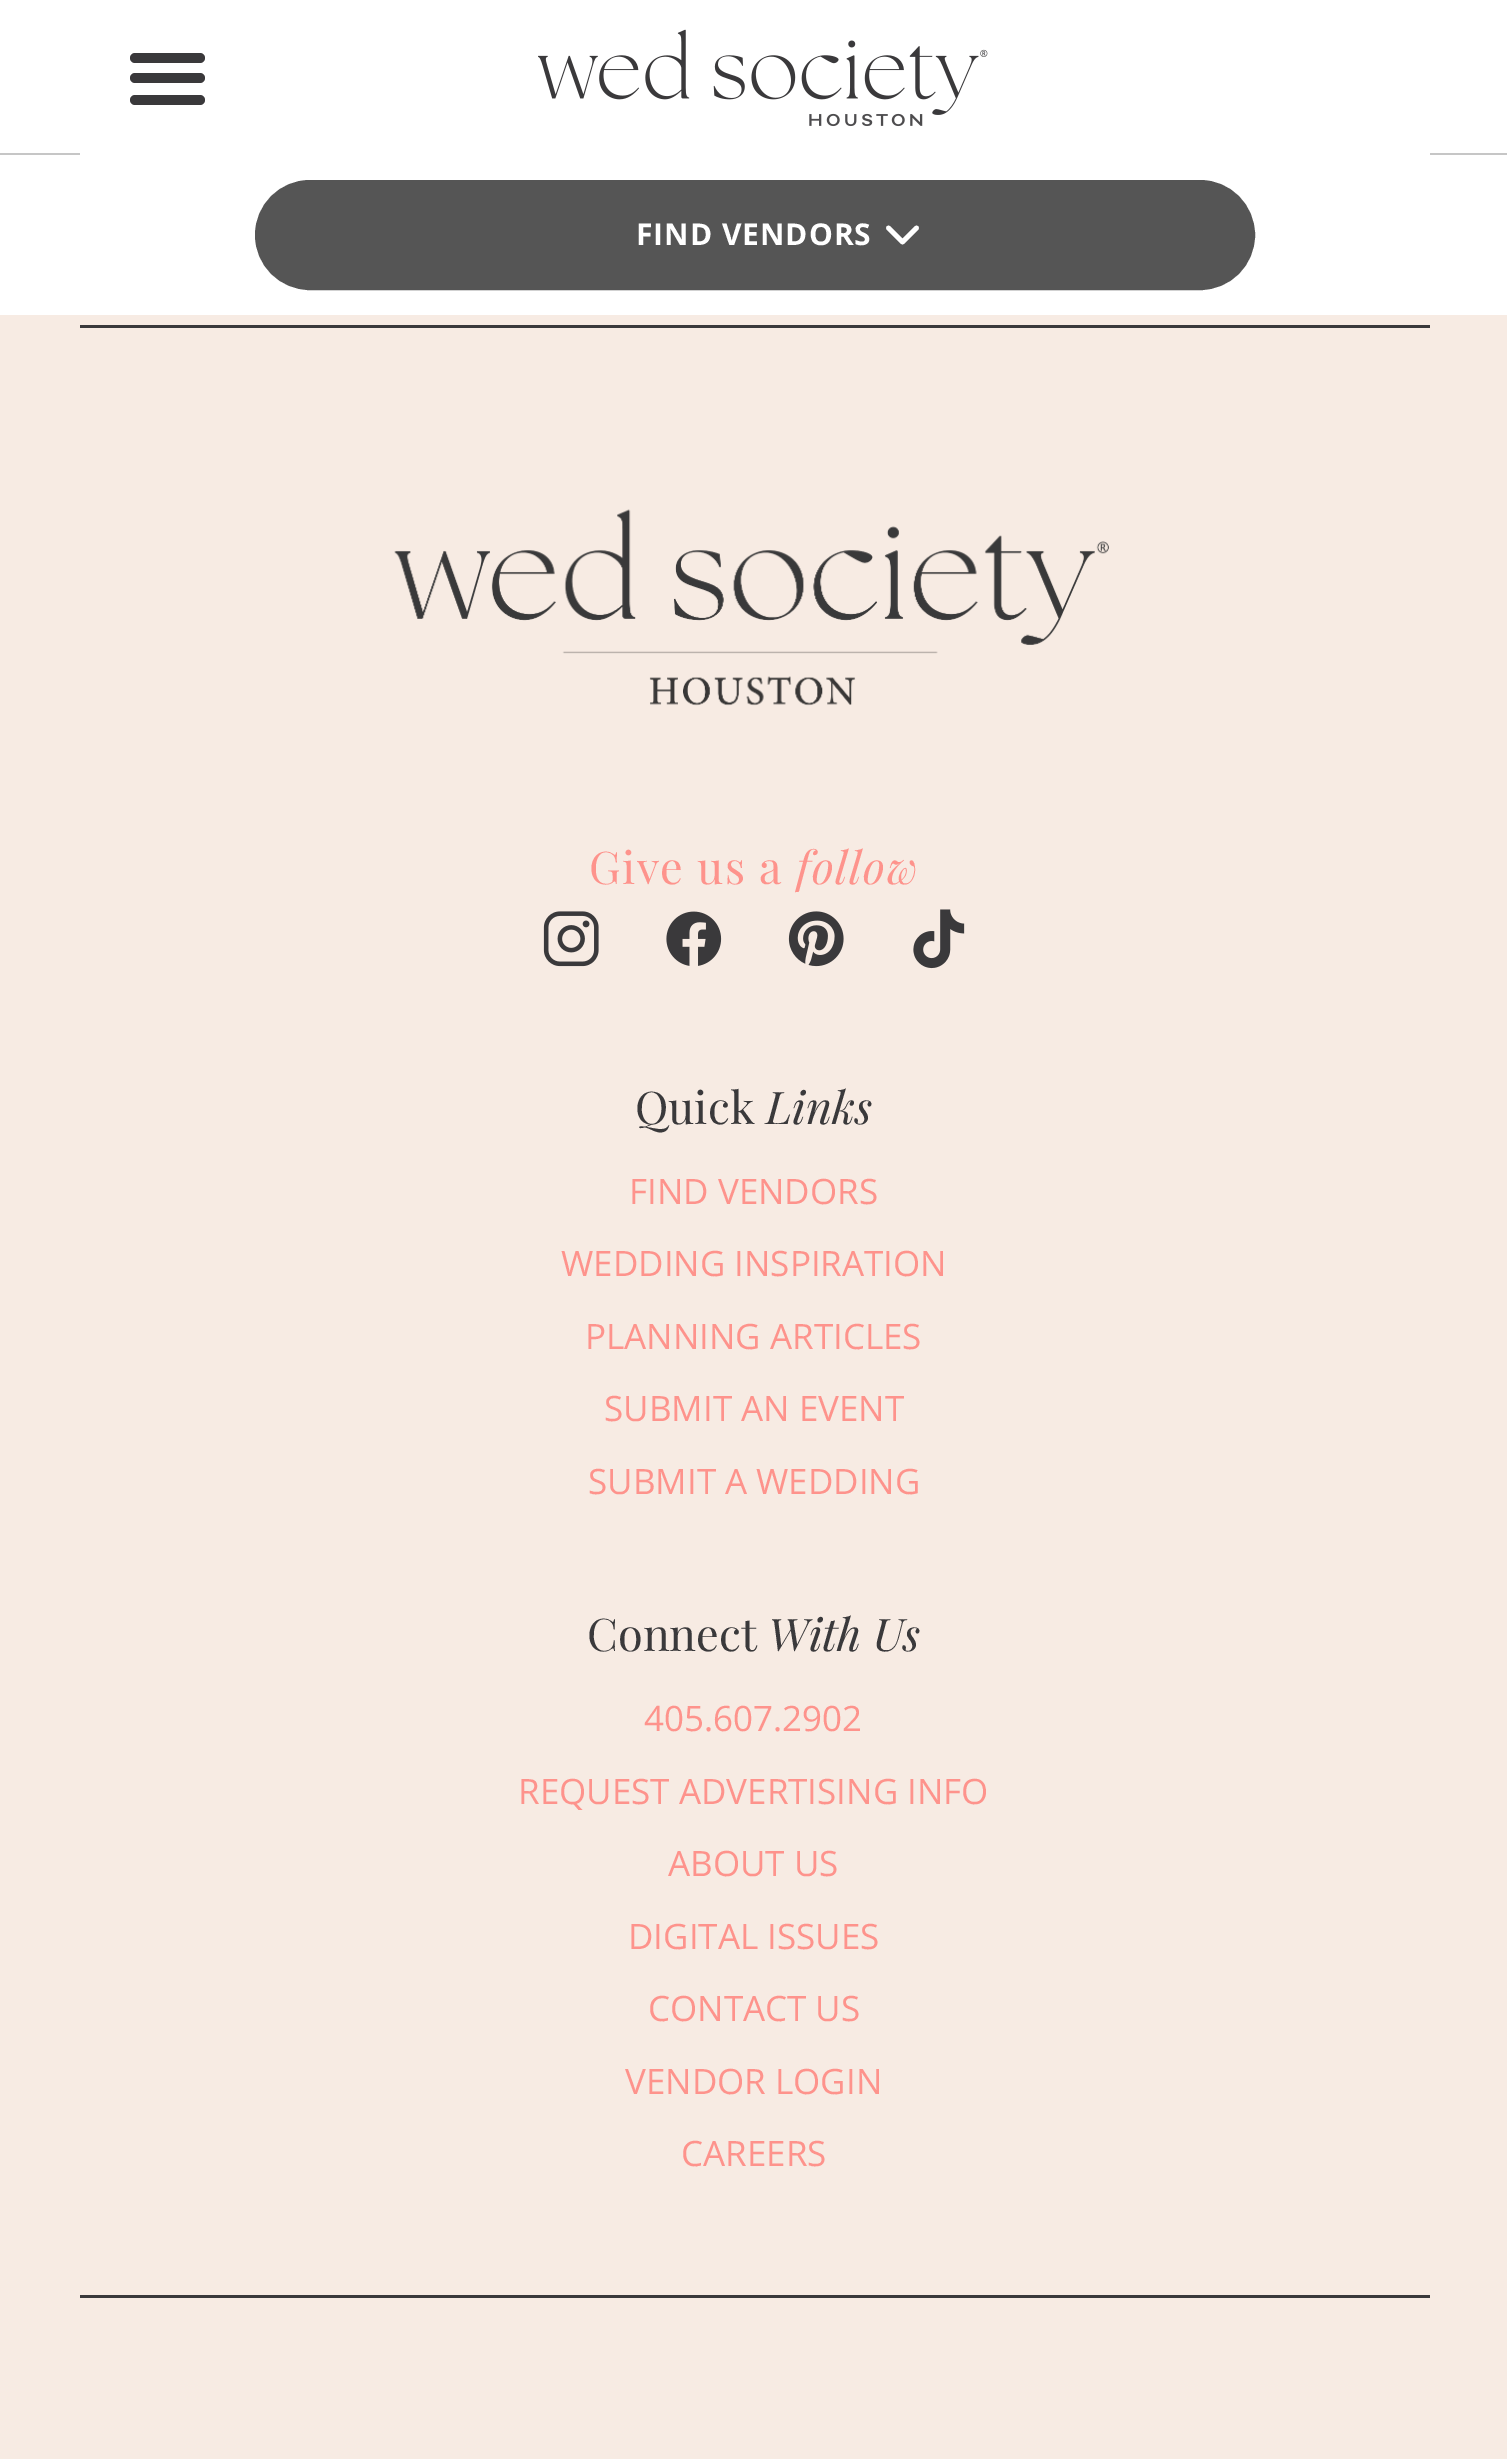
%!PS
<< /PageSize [1507 2459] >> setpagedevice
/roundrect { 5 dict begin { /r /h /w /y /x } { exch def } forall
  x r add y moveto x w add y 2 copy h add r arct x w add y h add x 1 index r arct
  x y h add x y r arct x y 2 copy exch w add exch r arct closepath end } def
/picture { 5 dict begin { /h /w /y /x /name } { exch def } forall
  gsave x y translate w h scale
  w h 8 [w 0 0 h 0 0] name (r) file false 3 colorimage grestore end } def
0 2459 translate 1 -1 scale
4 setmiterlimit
0.969 0.922 0.89 setrgbcolor
0 0 1507 2459 rectfill
1 setgray
0 0 1507 153 rectfill
0.776 setgray
0 153 1507 2 rectfill
1 setgray
80 153 1350 2 rectfill
0.227 0.224 0.231 setrgbcolor
130 53 75 10 5 roundrect fill
130 73 75 10 5 roundrect fill
130 95 75 10 5 roundrect fill
(img1.rgb) 538 29 450 98 picture
1 setgray
0 155 1507 160 rectfill
0.333 setgray
256.5 181.5 997 107 53.5 roundrect gsave fill grestore
3 setlinewidth
stroke
/OpenSans-Bold [30 0 0 -30 0 0] selectfont
1 setgray
636 245 moveto 1 0 (FIND VENDORS) ashow
4.7 setlinewidth
1 setlinecap
1 setlinejoin
newpath 888.5 228 moveto 902.5 242 lineto 916.5 228 lineto stroke
0.227 0.224 0.231 setrgbcolor
80 325 1350 3 rectfill
80 2295 1350 3 rectfill
(img2.rgb) 394 509 715 197 picture
/PlayfairDisplay-Regular [45 0 0 -45 0 0] selectfont
0.996 0.576 0.549 setrgbcolor
589 884 moveto 1.5 0 (Give us a) ashow
/PlayfairDisplay-Italic [45 0 0 -45 0 0] selectfont
796 884 moveto 1.5 0 (follow) ashow
(img3.rgb) 543 911 56 56 picture
(img4.rgb) 666 911 56 55 picture
(img5.rgb) 788 911 56 56 picture
(img6.rgb) 913 909 52 60 picture
/PlayfairDisplay-Regular [45 0 0 -45 0 0] selectfont
0.227 0.224 0.231 setrgbcolor
635 1124 moveto (Quick) show
/PlayfairDisplay-Italic [45 0 0 -45 0 0] selectfont
766 1124 moveto (Links) show
/OpenSans-Regular [35 0 0 -35 0 0] selectfont
0.996 0.576 0.549 setrgbcolor
629 1204 moveto (FIND VENDORS) show
561 1276 moveto (WEDDING INSPIRATION) show
585 1349 moveto (PLANNING ARTICLES) show
604 1421 moveto (SUBMIT AN EVENT) show
588 1494 moveto (SUBMIT A WEDDING) show
/PlayfairDisplay-Regular [45 0 0 -45 0 0] selectfont
0.227 0.224 0.231 setrgbcolor
587 1651 moveto (Connect) show
/PlayfairDisplay-Italic [45 0 0 -45 0 0] selectfont
768 1651 moveto (With Us) show
/OpenSans-Regular [35 0 0 -35 0 0] selectfont
0.996 0.576 0.549 setrgbcolor
644 1731 moveto (405.607.2902) show
518 1804 moveto (REQUEST ADVERTISING INFO) show
668 1876 moveto (ABOUT US) show
628 1949 moveto (DIGITAL ISSUES) show
648 2021 moveto (CONTACT US) show
625 2094 moveto (VENDOR LOGIN) show
681 2166 moveto (CAREERS) show
showpage
